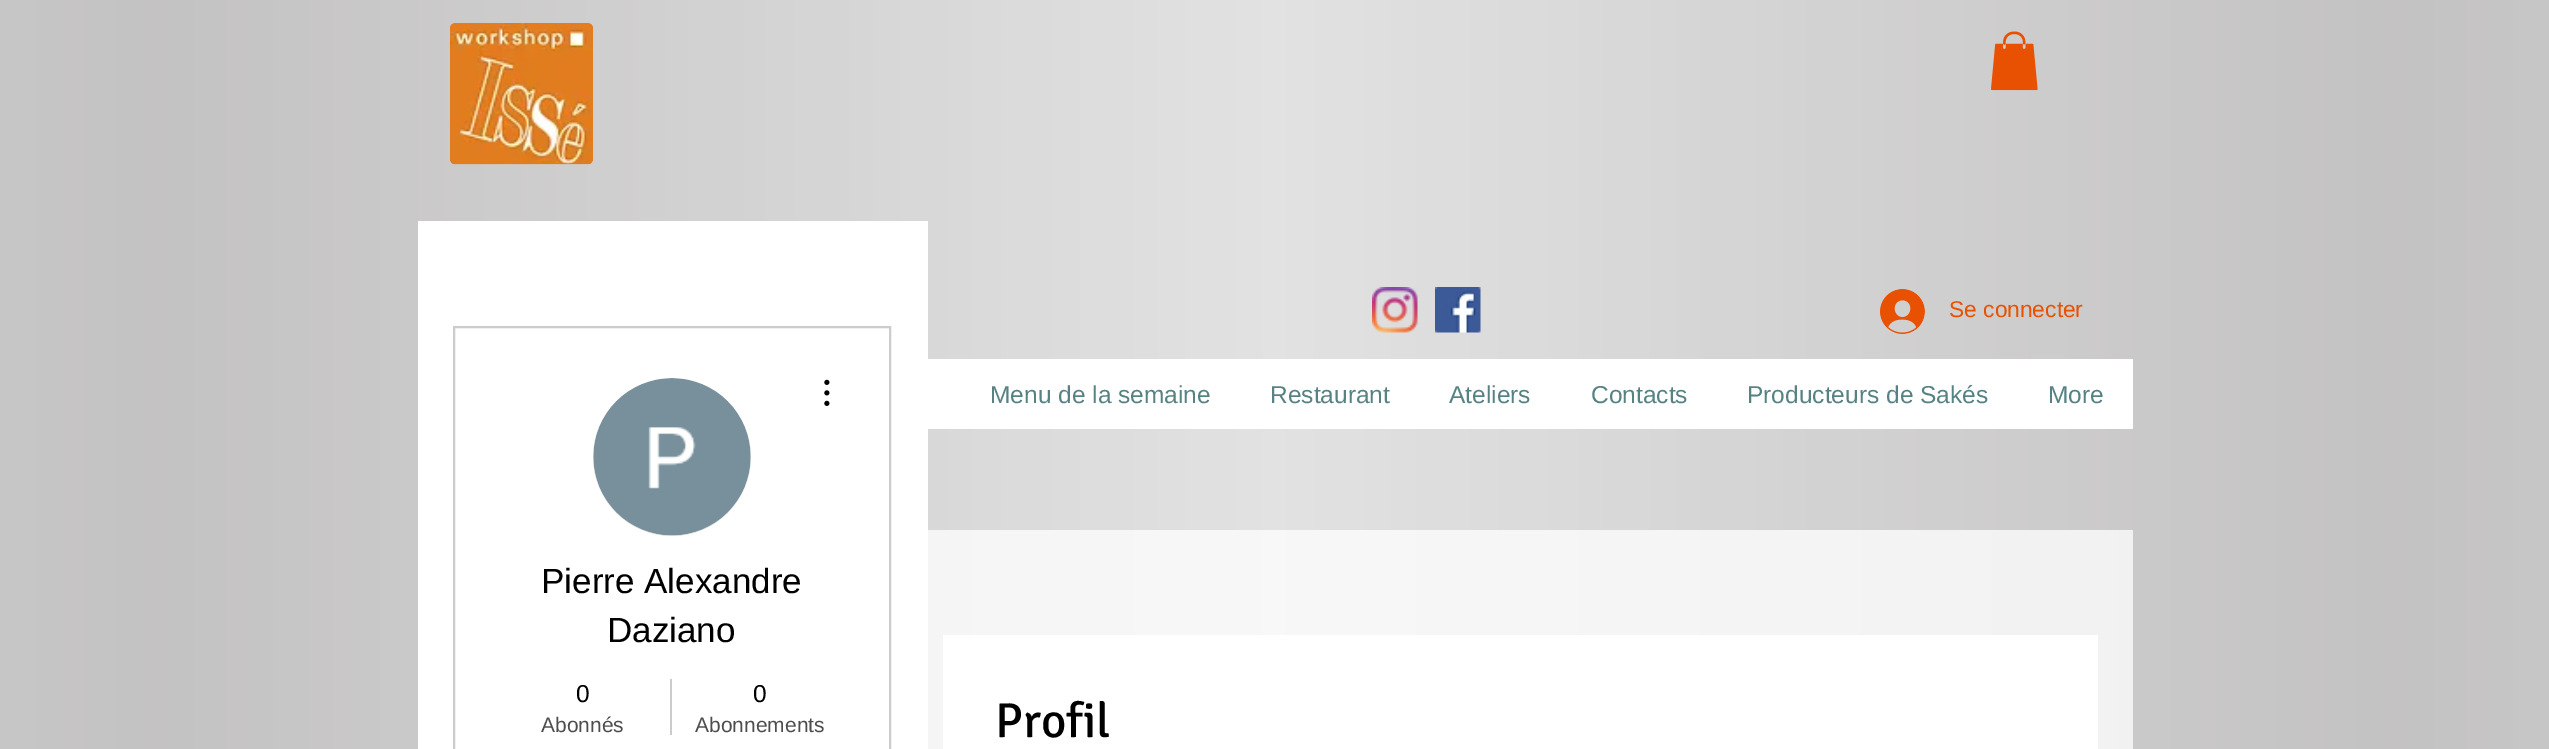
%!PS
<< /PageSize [2549 749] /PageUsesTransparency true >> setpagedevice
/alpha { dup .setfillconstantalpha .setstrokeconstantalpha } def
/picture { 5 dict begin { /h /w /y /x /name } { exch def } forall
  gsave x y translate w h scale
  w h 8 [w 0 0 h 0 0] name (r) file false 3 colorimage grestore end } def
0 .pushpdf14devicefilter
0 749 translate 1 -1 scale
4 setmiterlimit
1 setgray
0 0 2549 749 rectfill
(img1.rgb) 0 0 2549 749 picture
(img2.rgb) 450 23 143 142 picture
(img3.rgb) 1991 31 47 60 picture
(img4.rgb) 1372 287 46 46 picture
(img5.rgb) 1435 287 46 46 picture
(img6.rgb) 1880 289 45 45 picture
/LiberationSans-Regular [22.75 0 0 -22.75 0 0] selectfont
0.906 0.318 0.004 setrgbcolor
1949 317 moveto (Se connecter) show
1 setgray
928 359 1205 70 rectfill
/LiberationSans-Regular [24.5 0 0 -24.5 0 0] selectfont
0.341 0.51 0.518 setrgbcolor
990 403 moveto (Menu de la semaine) show
1270 403 moveto (Restaurant) show
1449 403 moveto (Ateliers) show
1591 403 moveto (Contacts) show
1747 403 moveto (Producteurs de Sakés) show
2048 403 moveto (More) show
1 setgray
418 221 510 528 rectfill
0.8 setgray
2 setlinewidth
454 327 436 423 rectstroke
0.847 setgray
newpath 672 457 79 0 360 arc closepath fill
(img7.rgb) 593 378 158 158 picture
(img8.rgb) 824 379 6 27 picture
/LiberationSans-Regular [35 0 0 -35 0 0] selectfont
0 setgray
541 593 moveto (Pierre Alexandre) show
607 642 moveto (Daziano) show
/LiberationSans-Regular [24.5 0 0 -24.5 0 0] selectfont
576 702 moveto (0) show
/LiberationSans-Regular [21 0 0 -21 0 0] selectfont
0.302 setgray
541 732 moveto (Abonnés) show
0.8 setgray
670 679 2 56 rectfill
/LiberationSans-Regular [24.5 0 0 -24.5 0 0] selectfont
0 setgray
753 702 moveto (0) show
/LiberationSans-Regular [21 0 0 -21 0 0] selectfont
0.302 setgray
695 732 moveto (Abonnements) show
0.75 alpha
1 setgray
928 530 1205 219 rectfill
1 alpha
943 635 1155 114 rectfill
/Signika-Regular [49 0 0 -49 0 0] selectfont
0 setgray
995 737 moveto (Profil) show
.poppdf14devicefilter showpage
